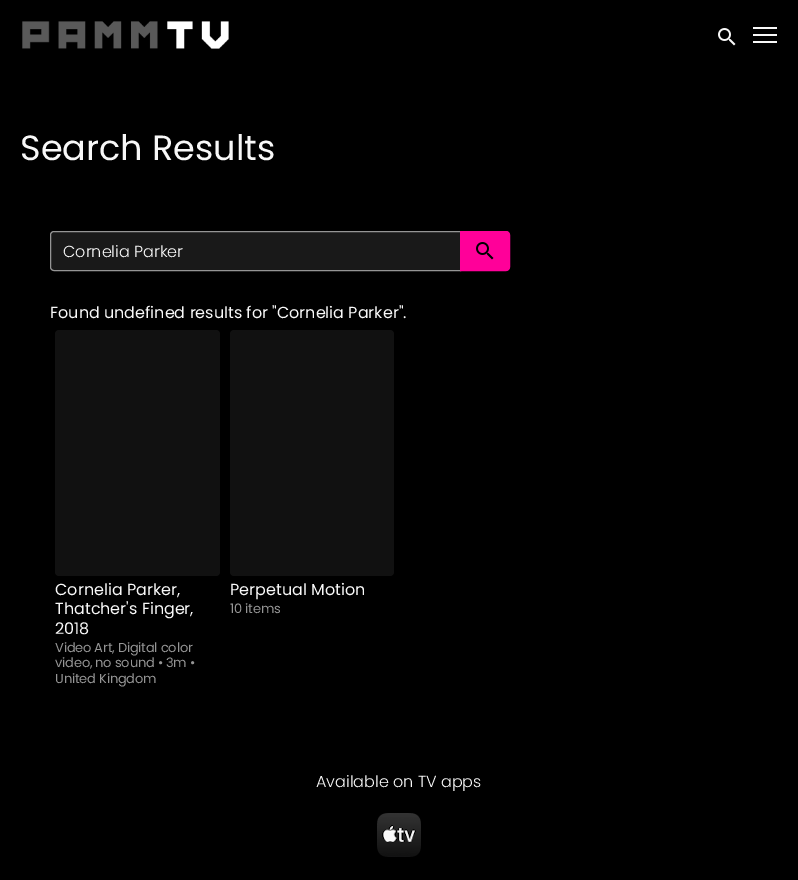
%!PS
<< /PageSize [798 880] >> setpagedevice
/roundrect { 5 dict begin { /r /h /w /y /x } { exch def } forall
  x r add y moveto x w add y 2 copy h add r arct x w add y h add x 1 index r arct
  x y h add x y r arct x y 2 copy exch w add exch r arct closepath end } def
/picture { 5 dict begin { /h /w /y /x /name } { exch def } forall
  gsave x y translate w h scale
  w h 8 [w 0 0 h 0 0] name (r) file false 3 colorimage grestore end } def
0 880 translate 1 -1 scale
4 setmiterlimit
0 setgray
0 0 798 880 rectfill
(img1.rgb) 22 21 207 28 picture
(img2.rgb) 718 28 18 18 picture
0.973 setgray
753 27 24 2 rectfill
753 34 24 2 rectfill
753 41 24 2 rectfill
/Poppins-Regular [35 0 0 -35 0 0] selectfont
20 160 moveto (Search Results) show
0.098 setgray
newpath 54 231.5 moveto 460.5 231.5 lineto 460.5 270.5 lineto 54 270.5 lineto 52 270.5 50.5 269 50.5 267 curveto 50.5 235 lineto 50.5 233 52 231.5 54 231.5 curveto closepath gsave fill grestore
0.584 setgray
stroke
/Poppins-Light [16 0 0 -16 0 0] selectfont
0.973 setgray
63 257 moveto (Cornelia Parker) show
1 0 0.6 setrgbcolor
newpath 460.5 231.5 moveto 506 231.5 lineto 508 231.5 509.5 233 509.5 235 curveto 509.5 267 lineto 509.5 269 508 270.5 506 270.5 curveto 460.5 270.5 lineto closepath gsave fill grestore
stroke
(img3.rgb) 476 242 18 18 picture
/Poppins-Regular [16 0 0 -16 0 0] selectfont
0.973 setgray
50 318 moveto (Found undefined results for "Cornelia Parker".) show
0.067 setgray
55 330 165 246 4 roundrect fill
0.973 setgray
55 595 moveto (Cornelia Parker,) show
55 614 moveto (Thatcher's Finger,) show
55 634 moveto (2018) show
/Poppins-Regular [13 0 0 -13 0 0] selectfont
0.584 setgray
55 652 moveto -0.2 0 (Video Art, Digital color) ashow
55 667 moveto -0.2 0 (video, no sound • 3m •) ashow
55 683 moveto -0.2 0 (United Kingdom) ashow
0.067 setgray
230 330 164 246 4 roundrect fill
/Poppins-Regular [16 0 0 -16 0 0] selectfont
0.973 setgray
230 595 moveto (Perpetual Motion) show
/Poppins-Regular [13 0 0 -13 0 0] selectfont
0.584 setgray
230 613 moveto -0.2 0 (10 items) ashow
/Poppins-Light [16 0 0 -16 0 0] selectfont
0.973 setgray
316 787 moveto (Available on TV apps) show
(img4.rgb) 377 813 44 44 picture
showpage
